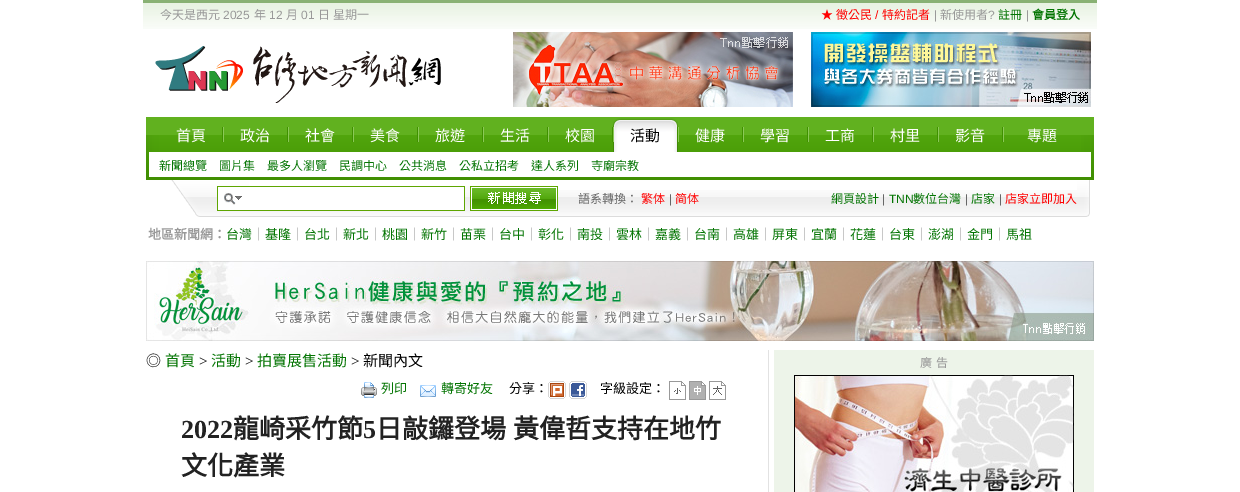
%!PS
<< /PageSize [1240 492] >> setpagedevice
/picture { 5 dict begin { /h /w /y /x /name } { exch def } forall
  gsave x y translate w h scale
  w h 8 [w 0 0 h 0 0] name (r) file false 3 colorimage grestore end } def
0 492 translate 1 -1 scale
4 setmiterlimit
1 setgray
0 0 1240 492 rectfill
(img1.rgb) 143 0 954 29 picture
/NotoSansCJKTC-Regular [12 0 0 -12 0 0] selectfont
0.6 setgray
160 19 moveto (今天是西元) show
/LiberationSans-Regular [12 0 0 -12 0 0] selectfont
223 19 moveto (2025) show
/NotoSansCJKTC-Regular [12 0 0 -12 0 0] selectfont
254 19 moveto (年) show
/LiberationSans-Regular [12 0 0 -12 0 0] selectfont
269 19 moveto (12) show
/NotoSansCJKTC-Regular [12 0 0 -12 0 0] selectfont
286 19 moveto (月) show
/LiberationSans-Regular [12 0 0 -12 0 0] selectfont
301 19 moveto (01) show
/NotoSansCJKTC-Regular [12 0 0 -12 0 0] selectfont
318 19 moveto (日 星期一) show
1 0 0 setrgbcolor
821 19 moveto (★ 徵公民) show
/LiberationSans-Regular [12 0 0 -12 0 0] selectfont
875 19 moveto (/) show
/NotoSansCJKTC-Regular [12 0 0 -12 0 0] selectfont
882 19 moveto (特約記者) show
/LiberationSans-Regular [12 0 0 -12 0 0] selectfont
0.6 setgray
934 19 moveto (|) show
/NotoSansCJKTC-Regular [12 0 0 -12 0 0] selectfont
940 19 moveto (新使用者) show
/LiberationSans-Regular [12 0 0 -12 0 0] selectfont
988 19 moveto (?) show
/NotoSansCJKTC-Regular [12 0 0 -12 0 0] selectfont
0.016 0.459 0.012 setrgbcolor
998 19 moveto (註冊) show
/LiberationSans-Regular [12 0 0 -12 0 0] selectfont
0.6 setgray
1026 19 moveto (|) show
/NotoSansCJKTC-Bold [12 0 0 -12 0 0] selectfont
0.016 0.459 0.012 setrgbcolor
1032 19 moveto (會員登入) show
(img2.rgb) 155 46 286 57 picture
(img3.rgb) 513 32 280 75 picture
(img4.rgb) 811 32 280 75 picture
(img5.rgb) 146 117 13 60 picture
(img6.rgb) 159 117 64 35 picture
/NotoSansCJKTC-Regular [15 0 0 -15 0 0] selectfont
1 setgray
176 141 moveto (首頁) show
(img7.rgb) 223 117 65 35 picture
240 141 moveto (政治) show
(img7.rgb) 288 117 65 35 picture
305 141 moveto (社會) show
(img7.rgb) 353 117 65 35 picture
370 141 moveto (美食) show
(img7.rgb) 418 117 65 35 picture
435 141 moveto (旅遊) show
(img7.rgb) 483 117 65 35 picture
500 141 moveto (生活) show
(img7.rgb) 548 117 65 35 picture
565 141 moveto (校園) show
(img8.rgb) 613 117 65 35 picture
0 setgray
630 141 moveto (活動) show
(img7.rgb) 678 117 65 35 picture
1 setgray
695 141 moveto (健康) show
(img7.rgb) 743 117 65 35 picture
760 141 moveto (學習) show
(img7.rgb) 808 117 65 35 picture
825 141 moveto (工商) show
(img7.rgb) 873 117 65 35 picture
890 141 moveto (村里) show
(img7.rgb) 938 117 65 35 picture
955 141 moveto (影音) show
(img9.rgb) 1003 117 78 35 picture
1027 141 moveto (專題) show
/NotoSansCJKTC-Regular [12 0 0 -12 0 0] selectfont
0.016 0.459 0.012 setrgbcolor
159 170 moveto (新聞總覽) show
219 170 moveto (圖片集) show
267 170 moveto (最多人瀏覽) show
339 170 moveto (民調中心) show
399 170 moveto (公共消息) show
459 170 moveto (公私立招考) show
531 170 moveto (達人系列) show
591 170 moveto (寺廟宗教) show
(img10.rgb) 1081 117 13 60 picture
0.251 0.561 0.004 setrgbcolor
146 177 948 3 rectfill
(img11.rgb) 171 180 78 37 picture
(img12.rgb) 249 186 309 1 picture
(img13.rgb) 464 187 6 23 picture
(img14.rgb) 470 187 88 23 picture
(img15.rgb) 249 210 309 7 picture
(img16.rgb) 558 190 20 27 picture
(img17.rgb) 578 190 180 27 picture
0.4 setgray
578 203 moveto (語系轉換：) show
1 0 0 setrgbcolor
641 203 moveto (繁体) show
/LiberationSans-Regular [12 0 0 -12 0 0] selectfont
0.4 setgray
669 203 moveto (|) show
/NotoSansCJKTC-Regular [12 0 0 -12 0 0] selectfont
1 0 0 setrgbcolor
675 203 moveto (简体) show
(img18.rgb) 758 190 319 27 picture
0.016 0.459 0.012 setrgbcolor
831 203 moveto (網頁設計) show
/LiberationSans-Regular [12 0 0 -12 0 0] selectfont
0.4 setgray
882 203 moveto (|) show
0.016 0.459 0.012 setrgbcolor
889 203 moveto (TNN) show
/NotoSansCJKTC-Regular [12 0 0 -12 0 0] selectfont
913 203 moveto (數位台灣) show
/LiberationSans-Regular [12 0 0 -12 0 0] selectfont
0.4 setgray
965 203 moveto (|) show
/NotoSansCJKTC-Regular [12 0 0 -12 0 0] selectfont
0.016 0.459 0.012 setrgbcolor
971 203 moveto (店家) show
/LiberationSans-Regular [12 0 0 -12 0 0] selectfont
0.4 setgray
999 203 moveto (|) show
/NotoSansCJKTC-Regular [12 0 0 -12 0 0] selectfont
1 0 0 setrgbcolor
1005 203 moveto (店家立即加入) show
(img19.rgb) 1077 180 13 37 picture
/NotoSansCJKTC-Bold [13 0 0 -13 0 0] selectfont
0.6 setgray
148 239 moveto (地區新聞網：) show
/NotoSansCJKTC-Regular [13 0 0 -13 0 0] selectfont
0.016 0.459 0.012 setrgbcolor
226 239 moveto (台灣) show
0.6 setgray
252 239 moveto (｜) show
0.016 0.459 0.012 setrgbcolor
265 239 moveto (基隆) show
0.6 setgray
291 239 moveto (｜) show
0.016 0.459 0.012 setrgbcolor
304 239 moveto (台北) show
0.6 setgray
330 239 moveto (｜) show
0.016 0.459 0.012 setrgbcolor
343 239 moveto (新北) show
0.6 setgray
369 239 moveto (｜) show
0.016 0.459 0.012 setrgbcolor
382 239 moveto (桃園) show
0.6 setgray
408 239 moveto (｜) show
0.016 0.459 0.012 setrgbcolor
421 239 moveto (新竹) show
0.6 setgray
447 239 moveto (｜) show
0.016 0.459 0.012 setrgbcolor
460 239 moveto (苗栗) show
0.6 setgray
486 239 moveto (｜) show
0.016 0.459 0.012 setrgbcolor
499 239 moveto (台中) show
0.6 setgray
525 239 moveto (｜) show
0.016 0.459 0.012 setrgbcolor
538 239 moveto (彰化) show
0.6 setgray
564 239 moveto (｜) show
0.016 0.459 0.012 setrgbcolor
577 239 moveto (南投) show
0.6 setgray
603 239 moveto (｜) show
0.016 0.459 0.012 setrgbcolor
616 239 moveto (雲林) show
0.6 setgray
642 239 moveto (｜) show
0.016 0.459 0.012 setrgbcolor
655 239 moveto (嘉義) show
0.6 setgray
681 239 moveto (｜) show
0.016 0.459 0.012 setrgbcolor
694 239 moveto (台南) show
0.6 setgray
720 239 moveto (｜) show
0.016 0.459 0.012 setrgbcolor
733 239 moveto (高雄) show
0.6 setgray
759 239 moveto (｜) show
0.016 0.459 0.012 setrgbcolor
772 239 moveto (屏東) show
0.6 setgray
798 239 moveto (｜) show
0.016 0.459 0.012 setrgbcolor
811 239 moveto (宜蘭) show
0.6 setgray
837 239 moveto (｜) show
0.016 0.459 0.012 setrgbcolor
850 239 moveto (花蓮) show
0.6 setgray
876 239 moveto (｜) show
0.016 0.459 0.012 setrgbcolor
889 239 moveto (台東) show
0.6 setgray
915 239 moveto (｜) show
0.016 0.459 0.012 setrgbcolor
928 239 moveto (澎湖) show
0.6 setgray
954 239 moveto (｜) show
0.016 0.459 0.012 setrgbcolor
967 239 moveto (金門) show
0.6 setgray
993 239 moveto (｜) show
0.016 0.459 0.012 setrgbcolor
1006 239 moveto (馬祖) show
(img20.rgb) 146 261 948 80 picture
0.886 setgray
768 350 1 142 rectfill
/NotoSansCJKTC-Regular [15 0 0 -15 0 0] selectfont
0 setgray
146 366 moveto (◎) show
0.016 0.459 0.012 setrgbcolor
165 366 moveto (首頁) show
/LiberationSerif-Regular [15 0 0 -15 0 0] selectfont
0 setgray
199 366 moveto (>) show
/NotoSansCJKTC-Regular [15 0 0 -15 0 0] selectfont
0.016 0.459 0.012 setrgbcolor
211 366 moveto (活動) show
/LiberationSerif-Regular [15 0 0 -15 0 0] selectfont
0 setgray
245 366 moveto (>) show
/NotoSansCJKTC-Regular [15 0 0 -15 0 0] selectfont
0.016 0.459 0.012 setrgbcolor
257 366 moveto (拍賣展售活動) show
/LiberationSerif-Regular [15 0 0 -15 0 0] selectfont
0 setgray
351 366 moveto (>) show
/NotoSansCJKTC-Regular [15 0 0 -15 0 0] selectfont
363 366 moveto (新聞內文) show
(img21.rgb) 361 382 16 16 picture
/NotoSansCJKTC-Regular [13 0 0 -13 0 0] selectfont
0.016 0.459 0.012 setrgbcolor
381 393 moveto (列印) show
(img22.rgb) 420 385 16 12 picture
441 393 moveto (轉寄好友) show
0 setgray
509 393 moveto (分享：) show
(img23.rgb) 548 381 18 18 picture
(img24.rgb) 569 381 18 18 picture
600 393 moveto (字級設定：) show
(img25.rgb) 669 381 17 19 picture
(img26.rgb) 689 381 17 19 picture
(img27.rgb) 709 381 17 19 picture
/LiberationSerif-Bold [26 0 0 -26 0 0] selectfont
0.133 setgray
181 438 moveto (2022) show
/NotoSansCJKTC-Bold [26 0 0 -26 0 0] selectfont
233 438 moveto (龍崎采竹節) show
/LiberationSerif-Bold [26 0 0 -26 0 0] selectfont
363 438 moveto (5) show
/NotoSansCJKTC-Bold [26 0 0 -26 0 0] selectfont
376 438 moveto (日敲鑼登場) show
513 438 moveto (黃偉哲支持在地竹) show
181 475 moveto (文化產業) show
0.929 0.957 0.914 setrgbcolor
774 350 320 142 rectfill
/NotoSansCJKTC-Regular [12 0 0 -12 0 0] selectfont
0.6 setgray
920 367 moveto 1 0 32 (廣 告) widthshow
(img28.rgb) 794 375 280 117 picture
showpage
